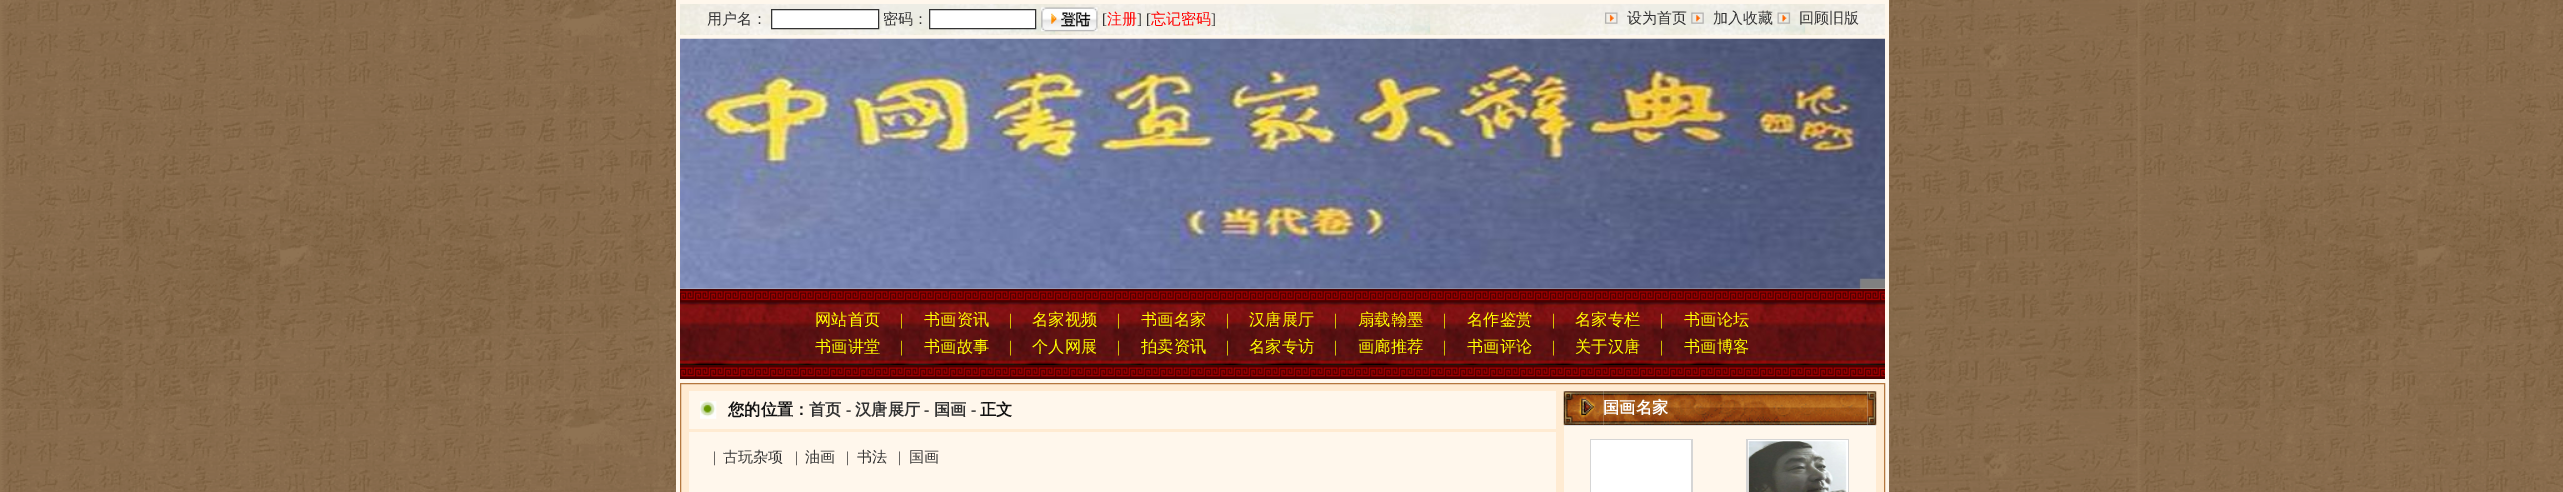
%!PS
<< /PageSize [2563 492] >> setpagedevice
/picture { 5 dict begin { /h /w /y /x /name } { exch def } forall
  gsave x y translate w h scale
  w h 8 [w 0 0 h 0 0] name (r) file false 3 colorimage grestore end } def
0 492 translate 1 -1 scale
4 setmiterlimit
1 setgray
0 0 2563 492 rectfill
(img1.rgb) 0 0 2563 492 picture
(img2.rgb) 680 4 1205 31 picture
1 0.969 0.925 setrgbcolor
676 0 1213 4 rectfill
1885 0 4 35 rectfill
676 0 4 35 rectfill
/WenQuanYiZenHei-Medium [15 0 0 -15 0 0] selectfont
0.2 setgray
707 24 moveto (用户名：) show
1 setgray
newpath 771.5 9.5 moveto 878.5 9.5 lineto 878.5 28.5 lineto 771.5 28.5 lineto closepath gsave fill grestore
0.2 setgray
stroke
883 24 moveto (密码：) show
1 setgray
newpath 929.5 9.5 moveto 1035.5 9.5 lineto 1035.5 28.5 lineto 929.5 28.5 lineto closepath gsave fill grestore
0.2 setgray
stroke
(img3.rgb) 1041 7 57 25 picture
/LiberationSerif-Regular [15 0 0 -15 0 0] selectfont
1102 24 moveto ([) show
/WenQuanYiZenHei-Medium [15 0 0 -15 0 0] selectfont
1 0 0 setrgbcolor
1107 24 moveto (注册) show
/LiberationSerif-Regular [15 0 0 -15 0 0] selectfont
0.2 setgray
1137 24 moveto (] [) show
/WenQuanYiZenHei-Medium [15 0 0 -15 0 0] selectfont
1 0 0 setrgbcolor
1151 24 moveto (忘记密码) show
/LiberationSerif-Regular [15 0 0 -15 0 0] selectfont
0.2 setgray
1211 24 moveto (]) show
(img4.rgb) 1605 12 13 12 picture
/WenQuanYiZenHei-Medium [15 0 0 -15 0 0] selectfont
1627 23 moveto (设为首页) show
(img5.rgb) 1691 12 13 12 picture
1713 23 moveto (加入收藏) show
(img6.rgb) 1777 12 14 12 picture
1799 23 moveto (回顾旧版) show
1 0.969 0.925 setrgbcolor
676 35 1213 4 rectfill
1885 35 4 457 rectfill
676 35 4 254 rectfill
(img7.rgb) 680 38 1205 251 picture
676 379 1213 4 rectfill
676 289 4 203 rectfill
0.278 0 0 setrgbcolor
680 289 1205 14 rectfill
(img8.rgb) 680 291 1205 10 picture
(img9.rgb) 680 302 1205 63 picture
/WenQuanYiZenHei-Medium [16.25 0 0 -16.25 0 0] selectfont
1 1 0 setrgbcolor
815 325 moveto (网站首页) show
/LiberationSerif-Regular [16.25 0 0 -16.25 0 0] selectfont
900 325 moveto (|) show
/WenQuanYiZenHei-Medium [16.25 0 0 -16.25 0 0] selectfont
924 325 moveto (书画资讯) show
/LiberationSerif-Regular [16.25 0 0 -16.25 0 0] selectfont
1009 325 moveto (|) show
/WenQuanYiZenHei-Medium [16.25 0 0 -16.25 0 0] selectfont
1032 325 moveto (名家视频) show
/LiberationSerif-Regular [16.25 0 0 -16.25 0 0] selectfont
1117 325 moveto (|) show
/WenQuanYiZenHei-Medium [16.25 0 0 -16.25 0 0] selectfont
1141 325 moveto (书画名家) show
/LiberationSerif-Regular [16.25 0 0 -16.25 0 0] selectfont
1226 325 moveto (|) show
/WenQuanYiZenHei-Medium [16.25 0 0 -16.25 0 0] selectfont
1249 325 moveto (汉唐展厅) show
/LiberationSerif-Regular [16.25 0 0 -16.25 0 0] selectfont
1334 325 moveto (|) show
/WenQuanYiZenHei-Medium [16.25 0 0 -16.25 0 0] selectfont
1358 325 moveto (扇载翰墨) show
/LiberationSerif-Regular [16.25 0 0 -16.25 0 0] selectfont
1443 325 moveto (|) show
/WenQuanYiZenHei-Medium [16.25 0 0 -16.25 0 0] selectfont
1467 325 moveto (名作鉴赏) show
/LiberationSerif-Regular [16.25 0 0 -16.25 0 0] selectfont
1552 325 moveto (|) show
/WenQuanYiZenHei-Medium [16.25 0 0 -16.25 0 0] selectfont
1575 325 moveto (名家专栏) show
/LiberationSerif-Regular [16.25 0 0 -16.25 0 0] selectfont
1660 325 moveto (|) show
/WenQuanYiZenHei-Medium [16.25 0 0 -16.25 0 0] selectfont
1684 325 moveto (书画论坛) show
815 352 moveto (书画讲堂) show
/LiberationSerif-Regular [16.25 0 0 -16.25 0 0] selectfont
900 352 moveto (|) show
/WenQuanYiZenHei-Medium [16.25 0 0 -16.25 0 0] selectfont
924 352 moveto (书画故事) show
/LiberationSerif-Regular [16.25 0 0 -16.25 0 0] selectfont
1009 352 moveto (|) show
/WenQuanYiZenHei-Medium [16.25 0 0 -16.25 0 0] selectfont
1032 352 moveto (个人网展) show
/LiberationSerif-Regular [16.25 0 0 -16.25 0 0] selectfont
1117 352 moveto (|) show
/WenQuanYiZenHei-Medium [16.25 0 0 -16.25 0 0] selectfont
1141 352 moveto (拍卖资讯) show
/LiberationSerif-Regular [16.25 0 0 -16.25 0 0] selectfont
1226 352 moveto (|) show
/WenQuanYiZenHei-Medium [16.25 0 0 -16.25 0 0] selectfont
1249 352 moveto (名家专访) show
/LiberationSerif-Regular [16.25 0 0 -16.25 0 0] selectfont
1334 352 moveto (|) show
/WenQuanYiZenHei-Medium [16.25 0 0 -16.25 0 0] selectfont
1358 352 moveto (画廊推荐) show
/LiberationSerif-Regular [16.25 0 0 -16.25 0 0] selectfont
1443 352 moveto (|) show
/WenQuanYiZenHei-Medium [16.25 0 0 -16.25 0 0] selectfont
1467 352 moveto (书画评论) show
/LiberationSerif-Regular [16.25 0 0 -16.25 0 0] selectfont
1552 352 moveto (|) show
/WenQuanYiZenHei-Medium [16.25 0 0 -16.25 0 0] selectfont
1575 352 moveto (关于汉唐) show
/LiberationSerif-Regular [16.25 0 0 -16.25 0 0] selectfont
1660 352 moveto (|) show
/WenQuanYiZenHei-Medium [16.25 0 0 -16.25 0 0] selectfont
1684 352 moveto (书画博客) show
0.278 0 0 setrgbcolor
680 365 1205 14 rectfill
(img10.rgb) 680 367 1205 10 picture
1 0.922 0.824 setrgbcolor
newpath 680.5 383.5 moveto 1884.5 383.5 lineto 1884.5 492.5 lineto 680.5 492.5 lineto closepath gsave fill grestore
0.706 0.467 0.243 setrgbcolor
stroke
1 0.969 0.925 setrgbcolor
689 391 867 101 rectfill
(img11.rgb) 700 401 17 18 picture
/WenQuanYiZenHei-Bold [16.25 0 0 -16.25 0 0] selectfont
0.071 setgray
728 415 moveto (您的位置：) show
0.2 setgray
809 415 moveto (首页) show
/LiberationSerif-Bold [16.25 0 0 -16.25 0 0] selectfont
0.071 setgray
846 415 moveto (-) show
/WenQuanYiZenHei-Bold [16.25 0 0 -16.25 0 0] selectfont
0.2 setgray
855 415 moveto (汉唐展厅) show
/LiberationSerif-Bold [16.25 0 0 -16.25 0 0] selectfont
0.071 setgray
924 415 moveto (-) show
/WenQuanYiZenHei-Bold [16.25 0 0 -16.25 0 0] selectfont
0.2 setgray
934 415 moveto (国画) show
/LiberationSerif-Bold [16.25 0 0 -16.25 0 0] selectfont
0.071 setgray
971 415 moveto (-) show
/WenQuanYiZenHei-Bold [16.25 0 0 -16.25 0 0] selectfont
980 415 moveto (正文) show
1 0.922 0.824 setrgbcolor
689 429 867 3 rectfill
/LiberationSerif-Regular [15 0 0 -15 0 0] selectfont
0.2 setgray
713 462 moveto (|) show
/WenQuanYiZenHei-Medium [15 0 0 -15 0 0] selectfont
723 462 moveto (古玩杂项) show
/LiberationSerif-Regular [15 0 0 -15 0 0] selectfont
795 462 moveto (|) show
/WenQuanYiZenHei-Medium [15 0 0 -15 0 0] selectfont
805 462 moveto (油画) show
/LiberationSerif-Regular [15 0 0 -15 0 0] selectfont
846 462 moveto (|) show
/WenQuanYiZenHei-Medium [15 0 0 -15 0 0] selectfont
857 462 moveto (书法) show
/LiberationSerif-Regular [15 0 0 -15 0 0] selectfont
898 462 moveto (|) show
/WenQuanYiZenHei-Medium [15 0 0 -15 0 0] selectfont
909 462 moveto (国画) show
1 0.969 0.925 setrgbcolor
1564 391 312 101 rectfill
0.976 setgray
1564 391 304 34 rectfill
(img14.rgb) 1603 391 265 34 picture
(img12.rgb) 1563 391 41 34 picture
(img13.rgb) 1867 391 10 34 picture
/WenQuanYiZenHei-Bold [16.25 0 0 -16.25 0 0] selectfont
1 setgray
1603 413 moveto (国画名家) show
0.855 setgray
1564 425 312 1 rectfill
0.835 setgray
1590 439 103 53 rectfill
1 setgray
1591 440 100 52 rectfill
0.835 setgray
1746 439 103 53 rectfill
1 setgray
1748 440 100 52 rectfill
(img15.rgb) 1748 441 99 51 picture
showpage
